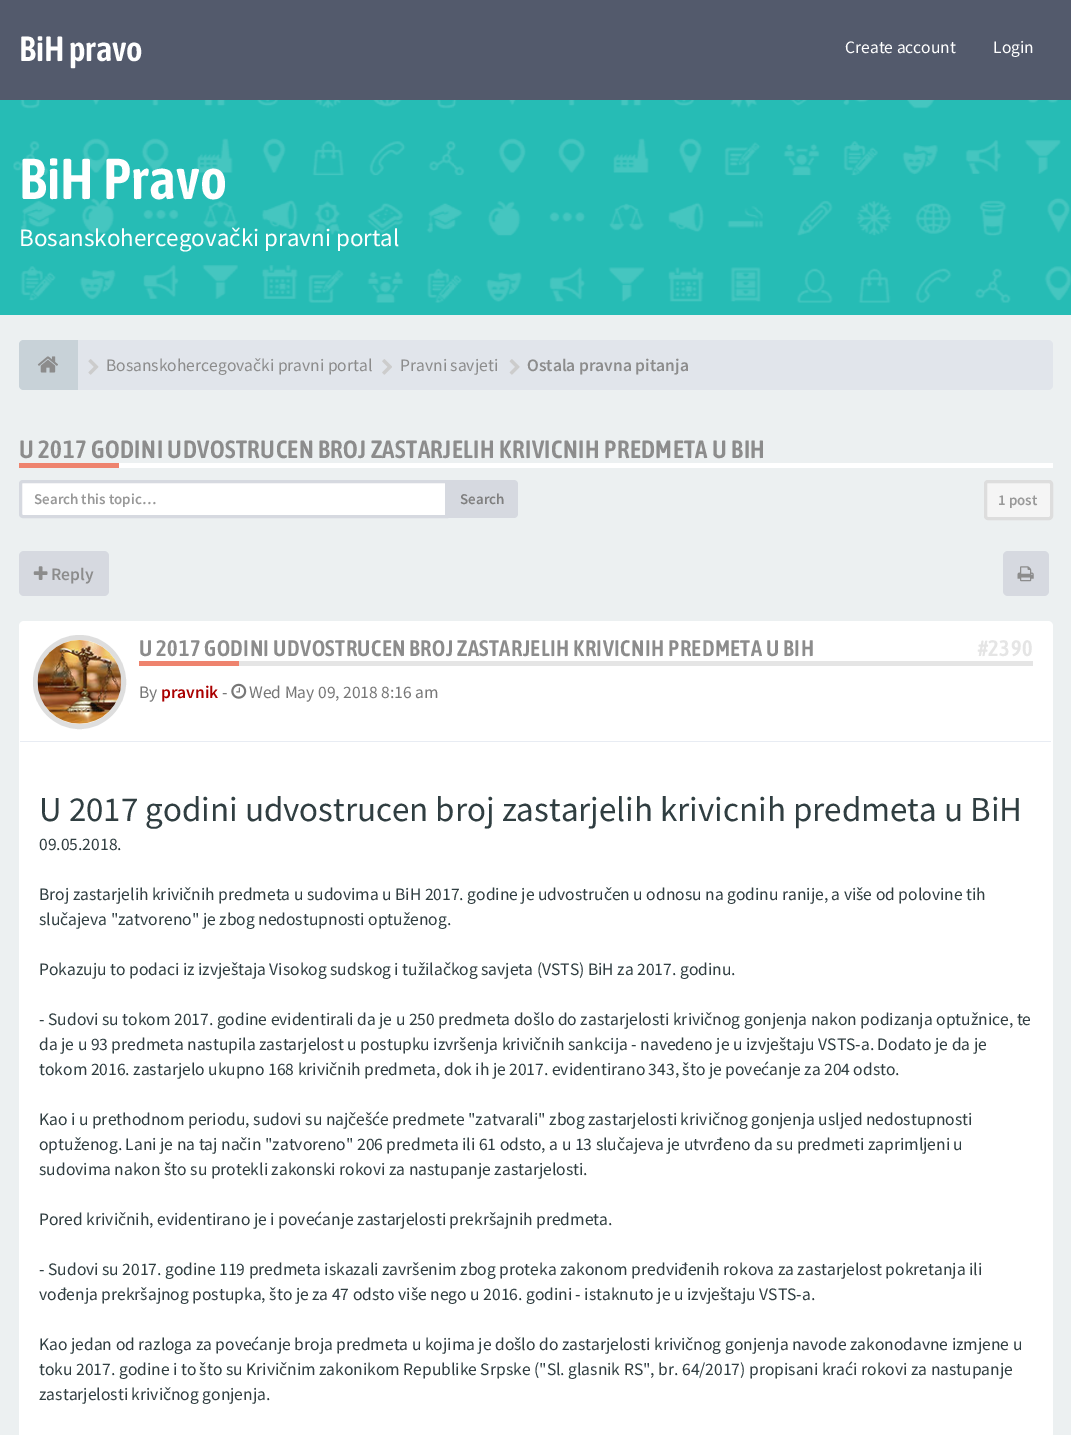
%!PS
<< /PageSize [1071 1435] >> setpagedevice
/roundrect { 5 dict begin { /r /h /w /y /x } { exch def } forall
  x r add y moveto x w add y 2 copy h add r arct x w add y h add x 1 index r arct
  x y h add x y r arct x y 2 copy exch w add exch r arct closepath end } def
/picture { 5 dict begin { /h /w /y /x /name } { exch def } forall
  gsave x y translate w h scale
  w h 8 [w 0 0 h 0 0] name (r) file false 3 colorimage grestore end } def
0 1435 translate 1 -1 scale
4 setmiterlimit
0.925 0.941 0.945 setrgbcolor
0 0 1071 1435 rectfill
0.325 0.353 0.424 setrgbcolor
0 0 1071 100 rectfill
/AsapCondensed-SemiBold [35 0 0 -35 0 0] selectfont
1 setgray
19 61 moveto (BiH pravo) show
/SourceSansPro-Regular [17.5 0 0 -17.5 0 0] selectfont
845 53 moveto (Create account) show
993 53 moveto (Login) show
0.149 0.737 0.71 setrgbcolor
0 100 1071 215 rectfill
(img1.rgb) 13 100 1058 203 picture
/AsapCondensed-SemiBold [57.5 0 0 -57.5 0 0] selectfont
1 setgray
19 199 moveto 0.5 0 (BiH Pravo) ashow
/SourceSansPro-Regular [25 0 0 -25 0 0] selectfont
19 246 moveto (Bosanskohercegovački pravni portal) show
0.882 0.898 0.922 setrgbcolor
19 340 1034 50 5 roundrect fill
0.784 0.824 0.847 setrgbcolor
newpath 24 340 moveto 78 340 lineto 78 390 lineto 24 390 lineto 21 390 19 388 19 385 curveto 19 345 lineto 19 342 21 340 24 340 curveto closepath fill
(img2.rgb) 37 356 21 17 picture
(img3.rgb) 88 359 11 16 picture
/SourceSansPro-Regular [17.5 0 0 -17.5 0 0] selectfont
0.549 setgray
106 371 moveto (Bosanskohercegovački pravni portal) show
(img4.rgb) 382 359 10 16 picture
400 371 moveto (Pravni savjeti) show
(img5.rgb) 509 359 11 16 picture
/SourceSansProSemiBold-SemiBold [17.5 0 0 -17.5 0 0] selectfont
527 371 moveto (Ostala pravna pitanja) show
1 setgray
119 463 934 5 rectfill
/AsapCondensed-SemiBold [25 0 0 -25 0 0] selectfont
0.549 setgray
19 458 moveto 0.5 0 (U 2017 GODINI UDVOSTRUCEN BROJ ZASTARJELIH KRIVICNIH PREDMETA U BIH) ashow
0.933 0.514 0.431 setrgbcolor
19 463 100 5 rectfill
1 setgray
newpath 23 481.5 moveto 446.5 481.5 lineto 446.5 516.5 lineto 23 516.5 lineto 21.5 516.5 20.5 515.5 20.5 514 curveto 20.5 484 lineto 20.5 482.5 21.5 481.5 23 481.5 curveto closepath gsave fill grestore
0.839 0.851 0.878 setrgbcolor
3 setlinewidth
stroke
/SourceSansProSemiBold-SemiBold [15 0 0 -15 0 0] selectfont
0.6 setgray
34 504 moveto (Search this topic…) show
0.839 0.851 0.878 setrgbcolor
newpath 448 480 moveto 514 480 lineto 516 480 518 482 518 484 curveto 518 514 lineto 518 516 516 518 514 518 curveto 448 518 lineto closepath fill
0.498 setgray
460 504 moveto (Search) show
0.961 setgray
985.5 481.5 66 37 2.5 roundrect gsave fill grestore
0.867 setgray
stroke
0.6 setgray
998 505 moveto (1 post) show
0.839 0.851 0.878 setrgbcolor
19 551 90 45 5 roundrect fill
(img6.rgb) 33 566 15 14 picture
/SourceSansProSemiBold-SemiBold [17.5 0 0 -17.5 0 0] selectfont
0.549 setgray
51 580 moveto (Reply) show
0.839 0.851 0.878 setrgbcolor
1003 551 46 45 5 roundrect fill
(img7.rgb) 1017 566 17 16 picture
1 setgray
19 621 1034 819 5 roundrect fill
0.91 0.925 0.953 setrgbcolor
20 741 1031 1 rectfill
0.871 setgray
5 setlinewidth
35.5 637.5 88 89 44 roundrect stroke
(img8.rgb) 37 640 85 84 picture
0.898 setgray
239 661 794 5 rectfill
/AsapCondensed-SemiBold [22.5 0 0 -22.5 0 0] selectfont
0.549 setgray
139 656 moveto 0.5 0 (U 2017 GODINI UDVOSTRUCEN BROJ ZASTARJELIH KRIVICNIH PREDMETA U BIH) ashow
0.898 setgray
978 656 moveto 0.5 0 (#2390) ashow
0.933 0.514 0.431 setrgbcolor
139 661 100 5 rectfill
/SourceSansPro-Regular [17.5 0 0 -17.5 0 0] selectfont
0.467 setgray
139 698 moveto (By) show
/SourceSansProSemiBold-SemiBold [17.5 0 0 -17.5 0 0] selectfont
0.667 0 0 setrgbcolor
161 698 moveto (pravnik) show
/SourceSansPro-Regular [17.5 0 0 -17.5 0 0] selectfont
0.467 setgray
222 698 moveto (-) show
(img9.rgb) 231 683 16 16 picture
249 698 moveto (Wed May 09, 2018 8:16 am) show
/SourceSansPro-Regular [35 0 0 -35 0 0] selectfont
0.188 0.243 0.255 setrgbcolor
39 821 moveto (U 2017 godini udvostrucen broj zastarjelih krivicnih predmeta u BiH) show
/SourceSansPro-Regular [17.5 0 0 -17.5 0 0] selectfont
39 850 moveto (09.05.2018.) show
39 900 moveto (Broj zastarjelih krivičnih predmeta u sudovima u BiH 2017. godine je udvostručen u odnosu na godinu ranije, a više od polovine tih) show
39 925 moveto (slučajeva "zatvoreno" je zbog nedostupnosti optuženog.) show
39 975 moveto (Pokazuju to podaci iz izvještaja Visokog sudskog i tužilačkog savjeta \(VSTS\) BiH za 2017. godinu.) show
39 1025 moveto (- Sudovi su tokom 2017. godine evidentirali da je u 250 predmeta došlo do zastarjelosti krivičnog gonjenja nakon podizanja optužnice, te) show
39 1050 moveto (da je u 93 predmeta nastupila zastarjelost u postupku izvršenja krivičnih sankcija - navedeno je u izvještaju VSTS-a. Dodato je da je) show
39 1075 moveto (tokom 2016. zastarjelo ukupno 168 krivičnih predmeta, dok ih je 2017. evidentirano 343, što je povećanje za 204 odsto.) show
39 1125 moveto (Kao i u prethodnom periodu, sudovi su najčešće predmete "zatvarali" zbog zastarjelosti krivičnog gonjenja usljed nedostupnosti) show
39 1150 moveto (optuženog. Lani je na taj način "zatvoreno" 206 predmeta ili 61 odsto, a u 13 slučajeva je utvrđeno da su predmeti zaprimljeni u) show
39 1175 moveto (sudovima nakon što su protekli zakonski rokovi za nastupanje zastarjelosti.) show
39 1225 moveto (Pored krivičnih, evidentirano je i povećanje zastarjelosti prekršajnih predmeta.) show
39 1275 moveto (- Sudovi su 2017. godine 119 predmeta iskazali završenim zbog proteka zakonom predviđenih rokova za zastarjelost pokretanja ili) show
39 1300 moveto (vođenja prekršajnog postupka, što je za 47 odsto više nego u 2016. godini - istaknuto je u izvještaju VSTS-a.) show
39 1350 moveto (Kao jedan od razloga za povećanje broja predmeta u kojima je došlo do zastarjelosti krivičnog gonjenja navode zakonodavne izmjene u) show
39 1375 moveto (toku 2017. godine i to što su Krivičnim zakonikom Republike Srpske \("Sl. glasnik RS", br. 64/2017\) propisani kraći rokovi za nastupanje) show
39 1400 moveto (zastarjelosti krivičnog gonjenja.) show
showpage
